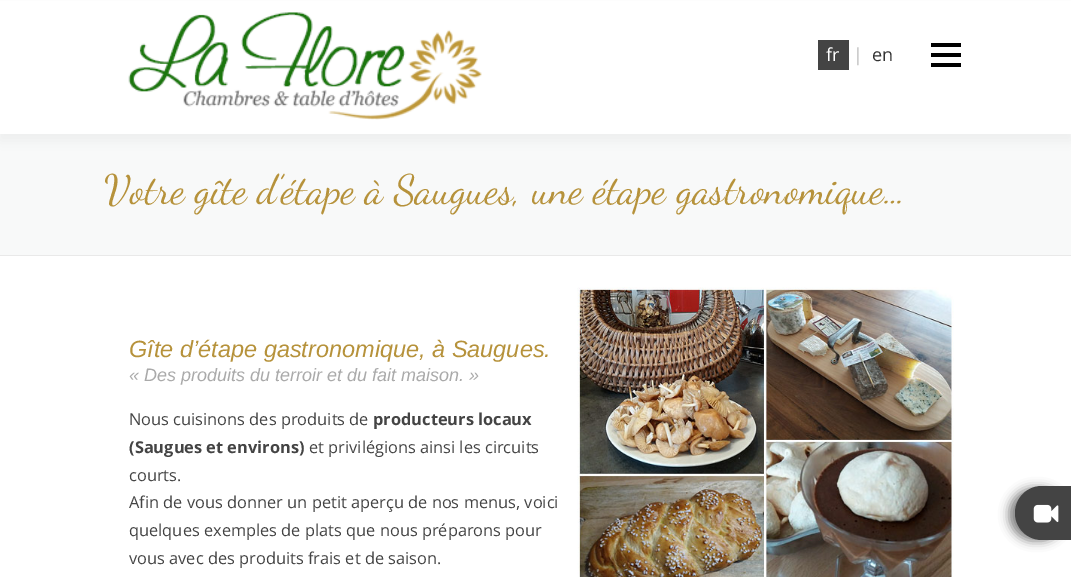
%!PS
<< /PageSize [1071 577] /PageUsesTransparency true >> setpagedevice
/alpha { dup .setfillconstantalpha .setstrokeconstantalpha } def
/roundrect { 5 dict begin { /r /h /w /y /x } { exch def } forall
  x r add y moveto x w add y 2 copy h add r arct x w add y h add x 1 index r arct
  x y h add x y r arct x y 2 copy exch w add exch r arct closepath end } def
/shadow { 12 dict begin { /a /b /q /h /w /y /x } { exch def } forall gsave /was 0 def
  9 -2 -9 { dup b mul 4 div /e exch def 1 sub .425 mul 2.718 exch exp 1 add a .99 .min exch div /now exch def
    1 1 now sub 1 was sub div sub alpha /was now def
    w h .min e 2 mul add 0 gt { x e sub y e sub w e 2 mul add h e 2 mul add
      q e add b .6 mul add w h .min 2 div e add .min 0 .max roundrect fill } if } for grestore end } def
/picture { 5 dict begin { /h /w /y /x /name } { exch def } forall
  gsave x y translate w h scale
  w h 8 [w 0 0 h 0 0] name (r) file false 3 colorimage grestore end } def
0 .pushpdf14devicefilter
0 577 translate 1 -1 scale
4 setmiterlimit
1 setgray
0 0 1071 577 rectfill
0.973 0.976 0.976 setrgbcolor
0 134 1071 121 rectfill
0.196 setgray
0 6 1071 134 0 6 0.06 shadow
1 setgray
0 1 1071 133 rectfill
(img1.rgb) 128 12 354 108 picture
0 setgray
931 53 30 4 rectfill
931 43 30 4 rectfill
931 63 30 4 rectfill
0.267 setgray
818 40 31 30 rectfill
/OpenSans-Regular [18 0 0 -18 0 0] selectfont
1 setgray
826 61 moveto (fr) show
0.733 setgray
853 61 moveto (|) show
0.2 setgray
872 61 moveto (en) show
0.914 setgray
0 255 1071 1 rectfill
/DancingScript-Regular [41 0 0 -41 0 0] selectfont
0.714 0.573 0.231 setrgbcolor
104 203 moveto (Votre gîte d’étape à Saugues, une étape gastronomique…) show
/LiberationSans-Italic [23.5 0 0 -23.5 0 0] selectfont
129 357 moveto (Gîte d’étape gastronomique, à Saugues.) show
/LiberationSans-Italic [18 0 0 -18 0 0] selectfont
0.667 setgray
129 381 moveto (« Des produits du terroir et du fait maison. ») show
/OpenSans-Regular [16.4 0 0 -16.4 0 0] selectfont
0.267 setgray
129 425 moveto (Nous cuisinons des produits de) show
/OpenSans-Bold [16.4 0 0 -16.4 0 0] selectfont
373 425 moveto (producteurs locaux) show
129 453 moveto (\(Saugues et environs\)) show
/OpenSans-Regular [16.4 0 0 -16.4 0 0] selectfont
309 453 moveto (et privilégions ainsi les circuits) show
129 481 moveto (courts.) show
129 508 moveto (Afin de vous donner un petit aperçu de nos menus, voici) show
129 536 moveto (quelques exemples de plats que nous préparons pour) show
129 564 moveto (vous avec des produits frais et de saison.) show
(img2.rgb) 577 287 377 290 picture
0 setgray
1009 488 56 53 26.5 5 0.5 shadow
0.267 setgray
newpath 1042 486 moveto 1071 486 lineto 1071 540 lineto 1042 540 lineto 1027 540 1015 528 1015 513 curveto 1015 498 1027 486 1042 486 curveto closepath fill
(img3.rgb) 1033 504 26 19 picture
.poppdf14devicefilter showpage
